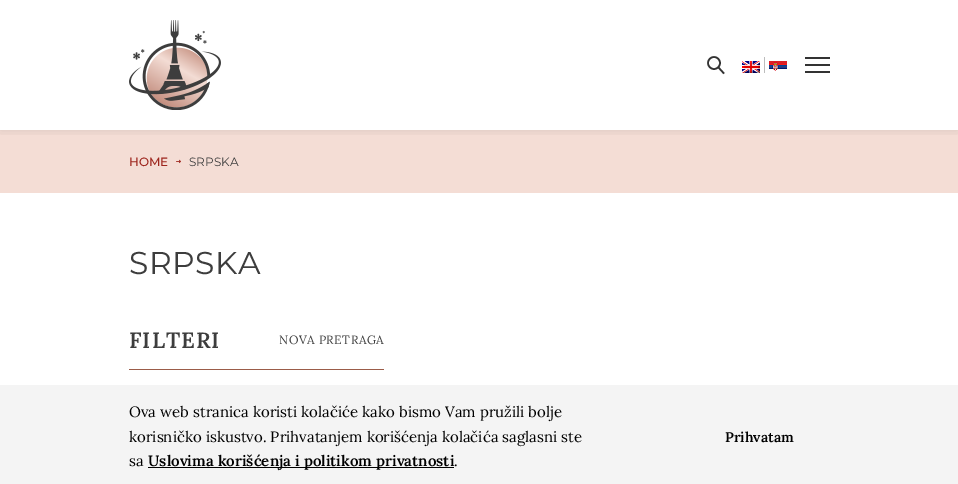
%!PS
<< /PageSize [958 484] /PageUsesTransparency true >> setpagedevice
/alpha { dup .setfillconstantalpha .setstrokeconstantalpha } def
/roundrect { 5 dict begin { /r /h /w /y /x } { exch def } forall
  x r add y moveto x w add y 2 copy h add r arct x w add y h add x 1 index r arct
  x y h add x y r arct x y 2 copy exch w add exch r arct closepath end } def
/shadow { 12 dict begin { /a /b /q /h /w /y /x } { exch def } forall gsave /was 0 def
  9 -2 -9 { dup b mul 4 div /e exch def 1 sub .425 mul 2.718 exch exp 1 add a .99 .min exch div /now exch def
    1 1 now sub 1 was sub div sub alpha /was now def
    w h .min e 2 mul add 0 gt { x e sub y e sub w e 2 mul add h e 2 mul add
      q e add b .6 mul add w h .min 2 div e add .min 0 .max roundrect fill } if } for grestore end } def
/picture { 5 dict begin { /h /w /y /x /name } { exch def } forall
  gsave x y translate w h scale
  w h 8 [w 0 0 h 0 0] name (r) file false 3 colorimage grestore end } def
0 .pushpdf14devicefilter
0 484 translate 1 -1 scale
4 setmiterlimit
1 setgray
0 0 958 484 rectfill
0.957 0.867 0.835 setrgbcolor
0 130 958 63 rectfill
gsave
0 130 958 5 rectclip
0 setgray
0 0 958 130 0 6 0.1 shadow
grestore
(img1.rgb) 129 20 92 90 picture
0.2 setgray
1.6 setlinewidth
newpath 714 63 6 0 360 arc closepath stroke
newpath 718.5 67.5 moveto 724 73.5 lineto stroke
0.741 setgray
764 57 1 16 rectfill
(img2.rgb) 742 61 18 12 picture
(img3.rgb) 769 61 18 10 picture
0.2 setgray
805 57 25 2 rectfill
805 64 25 2 rectfill
805 71 25 2 rectfill
/Montserrat-Medium [12 0 0 -12 0 0] selectfont
0.616 0.145 0.114 setrgbcolor
129 166 moveto (HOME) show
(img4.rgb) 176 159 5 5 picture
/Montserrat-Regular [12 0 0 -12 0 0] selectfont
0.239 setgray
189 166 moveto (SRPSKA) show
/Montserrat-Regular [31.5 0 0 -31.5 0 0] selectfont
129 274 moveto 0.5 0 (SRPSKA) ashow
0.608 0.361 0.286 setrgbcolor
129 369 255 1 rectfill
/Lora-SemiBold [22 0 0 -22 0 0] selectfont
0.239 setgray
129 348 moveto 1 0 (FILTERI) ashow
/Lora-Regular [12 0 0 -12 0 0] selectfont
279 344 moveto 0.5 0 (NOVA PRETRAGA) ashow
0.957 setgray
0 385 958 99 rectfill
/Lora-Regular [15 0 0 -15 0 0] selectfont
0 setgray
129 417 moveto (Ova web stranica koristi kolačiće kako bismo Vam pružili bolje) show
129 442 moveto (korisničko iskustvo. Prihvatanjem korišćenja kolačića saglasni ste) show
129 466 moveto (sa) show
148 467 306 1 rectfill
/Lora-SemiBold [15 0 0 -15 0 0] selectfont
148 466 moveto (Uslovima korišćenja i politikom privatnosti) show
/Lora-Regular [15 0 0 -15 0 0] selectfont
454 466 moveto (.) show
/Lora-SemiBold [14 0 0 -14 0 0] selectfont
725 442 moveto (Prihvatam) show
.poppdf14devicefilter showpage
